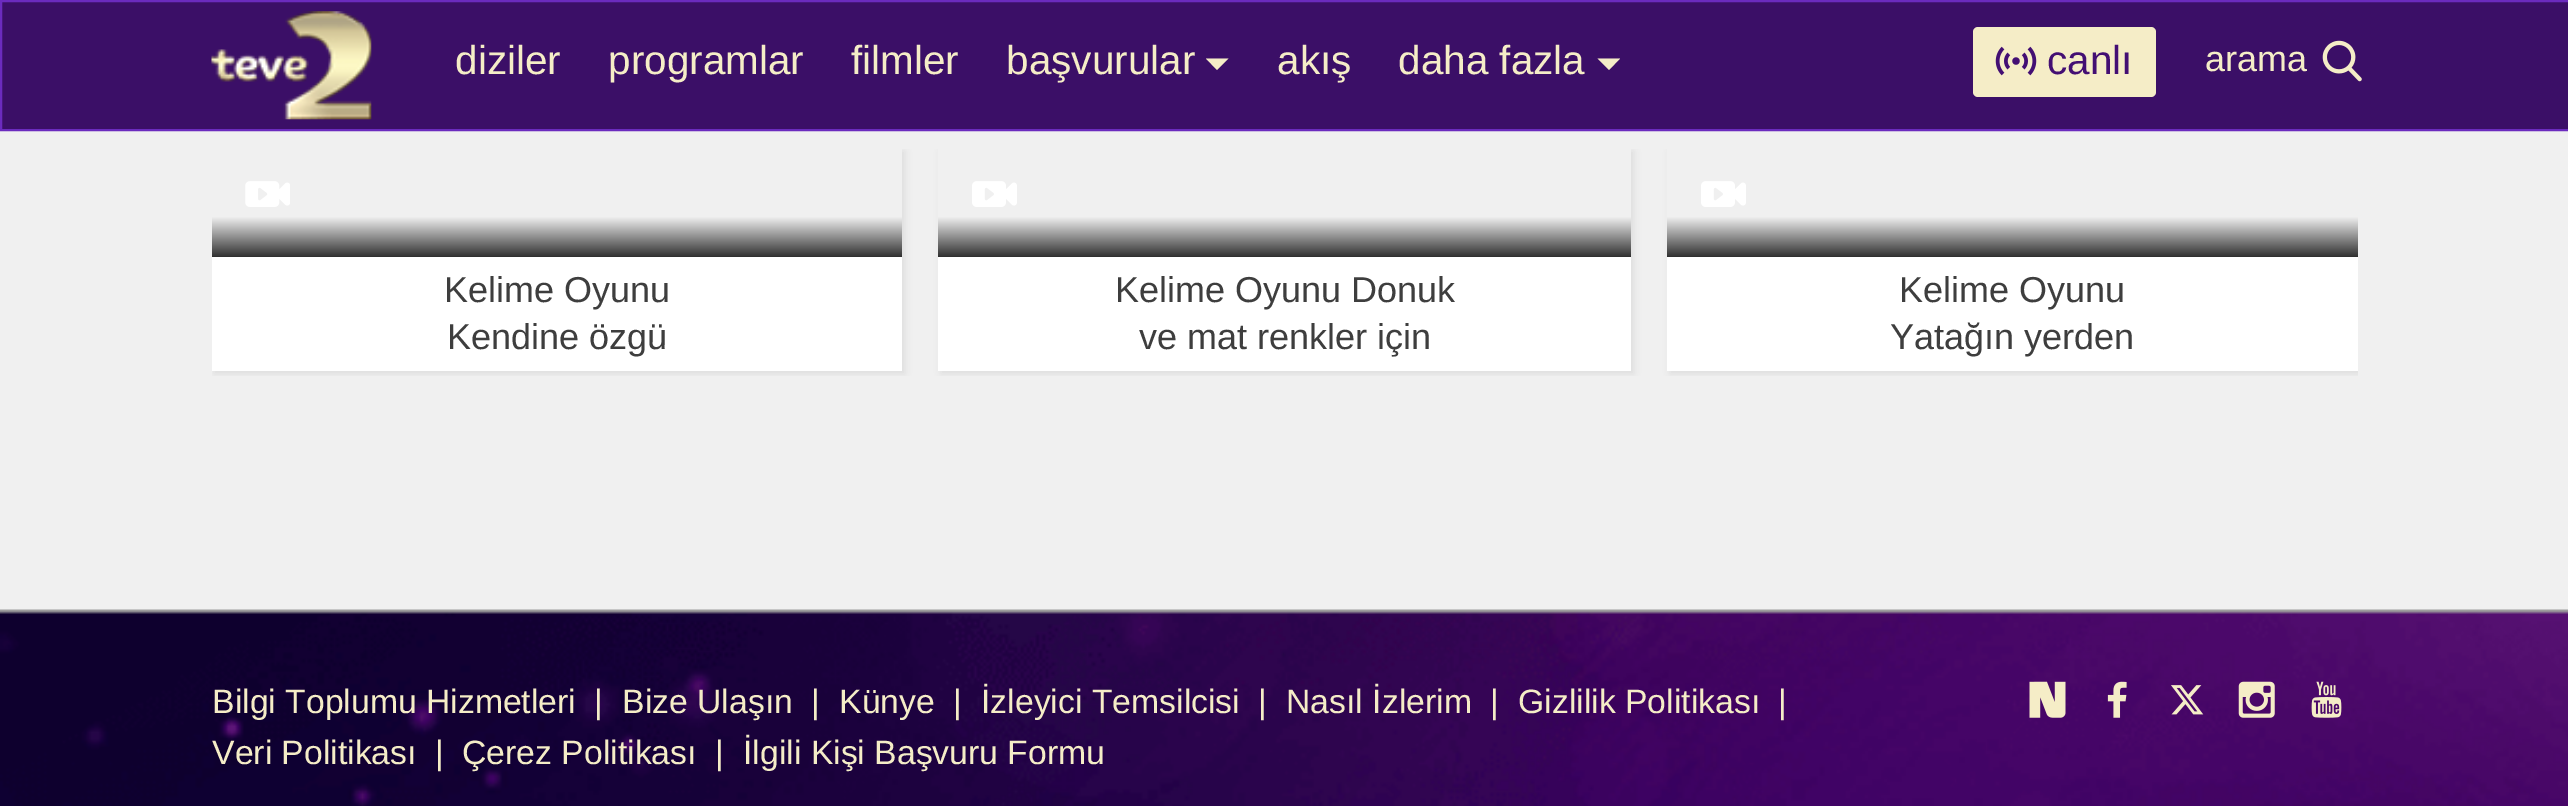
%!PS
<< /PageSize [2568 806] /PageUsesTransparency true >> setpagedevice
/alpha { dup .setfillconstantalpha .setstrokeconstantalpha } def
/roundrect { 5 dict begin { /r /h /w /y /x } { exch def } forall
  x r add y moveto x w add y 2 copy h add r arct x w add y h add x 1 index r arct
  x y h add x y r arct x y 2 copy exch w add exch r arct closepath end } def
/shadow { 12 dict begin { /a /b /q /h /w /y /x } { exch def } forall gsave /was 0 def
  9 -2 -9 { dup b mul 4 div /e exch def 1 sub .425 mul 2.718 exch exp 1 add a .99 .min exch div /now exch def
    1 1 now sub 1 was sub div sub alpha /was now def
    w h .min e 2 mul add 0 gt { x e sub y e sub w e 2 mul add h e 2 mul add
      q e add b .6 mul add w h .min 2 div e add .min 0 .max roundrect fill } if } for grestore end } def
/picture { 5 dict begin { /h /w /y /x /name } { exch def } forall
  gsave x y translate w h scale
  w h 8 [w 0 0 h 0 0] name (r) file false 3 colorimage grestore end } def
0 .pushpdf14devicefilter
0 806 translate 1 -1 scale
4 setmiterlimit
0.941 setgray
0 0 2568 806 rectfill
0.231 0.059 0.404 setrgbcolor
newpath 1 1 moveto 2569 1 lineto 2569 130 lineto 1 130 lineto closepath gsave fill grestore
0.42 0.169 0.745 setrgbcolor
2 setlinewidth
stroke
(img1.rgb) 211 11 161 109 picture
/LiberationSans-Regular [40.5 0 0 -40.5 0 0] selectfont
0.961 0.929 0.78 setrgbcolor
455 74 moveto (diziler) show
608 74 moveto (programlar) show
851 74 moveto (filmler) show
1006 74 moveto (başvurular) show
newpath 1206 58.5 moveto 1228.5 58.5 lineto 1217 70 lineto closepath fill
1277 74 moveto (akış) show
1398 74 moveto (daha fazla) show
newpath 1597.5 58.5 moveto 1620 58.5 lineto 1609 70 lineto closepath fill
1973 27 183 70 5 roundrect fill
(img2.rgb) 1995 46 42 30 picture
0.263 0.059 0.451 setrgbcolor
2047 74 moveto (canlı) show
/LiberationSans-Regular [36 0 0 -36 0 0] selectfont
0.961 0.929 0.78 setrgbcolor
2205 71 moveto (arama) show
(img3.rgb) 2322 40 40 42 picture
gsave
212 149 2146 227 rectclip
0.871 setgray
214 151 691 223 0 3.5 1 shadow
grestore
gsave newpath 212 149 moveto 902 149 lineto 902 257 lineto 212 257 lineto closepath clip newpath
<< /ShadingType 2 /ColorSpace /DeviceRGB /Coords [557 148 557 257] /Extend [true true] /Function << /FunctionType 3 /Domain [0 1] /Functions [<< /FunctionType 2 /Domain [0 1] /C0 [0.941 0.941 0.941] /C1 [0.941 0.941 0.941] /N 1 >> << /FunctionType 2 /Domain [0 1] /C0 [0.941 0.941 0.941] /C1 [0.188 0.188 0.188] /N 1 >>] /Bounds [0.63] /Encode [0 1 0 1] >> >> shfill grestore
(img4.rgb) 245 181 45 26 picture
1 setgray
212 257 690 114 rectfill
0.243 setgray
444 302 moveto (Kelime Oyunu) show
447 349 moveto (Kendine özgü) show
gsave
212 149 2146 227 rectclip
0.871 setgray
941 151 693 223 0 3.5 1 shadow
grestore
gsave newpath 938 149 moveto 1631 149 lineto 1631 257 lineto 938 257 lineto closepath clip newpath
<< /ShadingType 2 /ColorSpace /DeviceRGB /Coords [1285 148 1285 257] /Extend [true true] /Function << /FunctionType 3 /Domain [0 1] /Functions [<< /FunctionType 2 /Domain [0 1] /C0 [0.941 0.941 0.941] /C1 [0.941 0.941 0.941] /N 1 >> << /FunctionType 2 /Domain [0 1] /C0 [0.941 0.941 0.941] /C1 [0.188 0.188 0.188] /N 1 >>] /Bounds [0.63] /Encode [0 1 0 1] >> >> shfill grestore
(img5.rgb) 972 181 45 26 picture
1 setgray
938 257 693 114 rectfill
0.243 setgray
1115 302 moveto (Kelime Oyunu Donuk) show
1139 349 moveto (ve mat renkler için) show
gsave
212 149 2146 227 rectclip
0.871 setgray
1670 151 690 223 0 3.5 1 shadow
grestore
gsave newpath 1667 149 moveto 2358 149 lineto 2358 257 lineto 1667 257 lineto closepath clip newpath
<< /ShadingType 2 /ColorSpace /DeviceRGB /Coords [2013 148 2013 257] /Extend [true true] /Function << /FunctionType 3 /Domain [0 1] /Functions [<< /FunctionType 2 /Domain [0 1] /C0 [0.941 0.941 0.941] /C1 [0.941 0.941 0.941] /N 1 >> << /FunctionType 2 /Domain [0 1] /C0 [0.941 0.941 0.941] /C1 [0.188 0.188 0.188] /N 1 >>] /Bounds [0.63] /Encode [0 1 0 1] >> >> shfill grestore
(img5.rgb) 1701 181 45 26 picture
1 setgray
1667 257 691 114 rectfill
0.243 setgray
1899 302 moveto (Kelime Oyunu) show
1890 349 moveto (Yatağın yerden) show
(img6.rgb) 0 609 2568 197 picture
/LiberationSans-Regular [33.75 0 0 -33.75 0 0] selectfont
0.961 0.929 0.78 setrgbcolor
212 713 moveto (Bilgi Toplumu Hizmetleri) show
594 713 moveto (|) show
622 713 moveto (Bize Ulaşın) show
811 713 moveto (|) show
839 713 moveto (Künye) show
953 713 moveto (|) show
981 713 moveto (İzleyici Temsilcisi) show
1258 713 moveto (|) show
1286 713 moveto (Nasıl İzlerim) show
1490 713 moveto (|) show
1518 713 moveto (Gizlilik Politikası) show
1778 713 moveto (|) show
212 764 moveto (Veri Politikası) show
435 764 moveto (|) show
462 764 moveto (Çerez Politikası) show
715 764 moveto (|) show
743 764 moveto (İlgili Kişi Başvuru Formu) show
(img7.rgb) 2029 681 37 37 picture
(img8.rgb) 2107 681 20 37 picture
(img9.rgb) 2171 685 33 30 picture
(img10.rgb) 2238 681 37 37 picture
(img11.rgb) 2311 681 31 37 picture
.poppdf14devicefilter showpage
